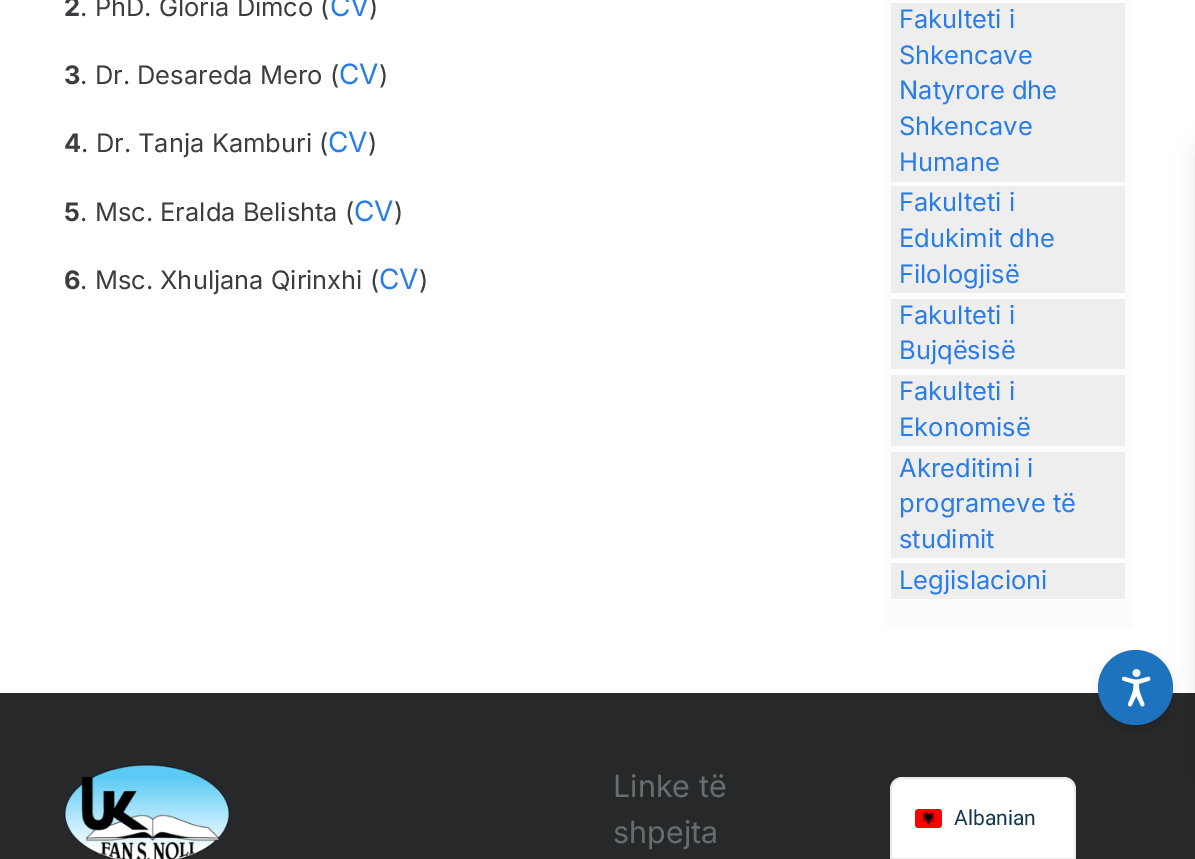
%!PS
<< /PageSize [1195 859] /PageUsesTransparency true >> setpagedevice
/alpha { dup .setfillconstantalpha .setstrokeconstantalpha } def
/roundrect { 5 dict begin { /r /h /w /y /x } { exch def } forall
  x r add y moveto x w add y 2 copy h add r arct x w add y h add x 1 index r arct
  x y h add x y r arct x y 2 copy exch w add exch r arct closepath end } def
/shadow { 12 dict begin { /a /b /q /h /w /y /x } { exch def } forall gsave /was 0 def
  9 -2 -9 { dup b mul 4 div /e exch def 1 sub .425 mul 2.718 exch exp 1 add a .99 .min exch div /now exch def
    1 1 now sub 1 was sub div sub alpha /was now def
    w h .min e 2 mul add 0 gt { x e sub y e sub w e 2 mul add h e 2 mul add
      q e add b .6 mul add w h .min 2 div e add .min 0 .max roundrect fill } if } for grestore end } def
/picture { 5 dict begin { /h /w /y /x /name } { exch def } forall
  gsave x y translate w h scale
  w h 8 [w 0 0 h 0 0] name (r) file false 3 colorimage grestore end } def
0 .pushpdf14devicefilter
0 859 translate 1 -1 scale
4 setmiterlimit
1 setgray
0 0 1195 859 rectfill
/Inter-Bold [25.5 0 0 -25.5 0 0] selectfont
0.231 0.239 0.251 setrgbcolor
64 16 moveto (2) show
/Inter-Regular [25.5 0 0 -25.5 0 0] selectfont
80 16 moveto (. PhD. Gloria Dimco \() show
/Inter-Regular [28 0 0 -28 0 0] selectfont
0.153 0.486 0.918 setrgbcolor
330 16 moveto (CV) show
/Inter-Regular [25.5 0 0 -25.5 0 0] selectfont
0.231 0.239 0.251 setrgbcolor
369 16 moveto (\)) show
/Inter-Bold [25.5 0 0 -25.5 0 0] selectfont
64 84 moveto (3) show
/Inter-Regular [25.5 0 0 -25.5 0 0] selectfont
80 84 moveto (. Dr. Desareda Mero \() show
/Inter-Regular [28 0 0 -28 0 0] selectfont
0.153 0.486 0.918 setrgbcolor
339 84 moveto (CV) show
/Inter-Regular [25.5 0 0 -25.5 0 0] selectfont
0.231 0.239 0.251 setrgbcolor
379 84 moveto (\)) show
/Inter-Bold [25.5 0 0 -25.5 0 0] selectfont
64 152 moveto (4) show
/Inter-Regular [25.5 0 0 -25.5 0 0] selectfont
81 152 moveto (. Dr. Tanja Kamburi \() show
/Inter-Regular [28 0 0 -28 0 0] selectfont
0.153 0.486 0.918 setrgbcolor
328 152 moveto (CV) show
/Inter-Regular [25.5 0 0 -25.5 0 0] selectfont
0.231 0.239 0.251 setrgbcolor
368 152 moveto (\)) show
/Inter-Bold [25.5 0 0 -25.5 0 0] selectfont
64 221 moveto (5) show
/Inter-Regular [25.5 0 0 -25.5 0 0] selectfont
80 221 moveto (. Msc. Eralda Belishta \() show
/Inter-Regular [28 0 0 -28 0 0] selectfont
0.153 0.486 0.918 setrgbcolor
354 221 moveto (CV) show
/Inter-Regular [25.5 0 0 -25.5 0 0] selectfont
0.231 0.239 0.251 setrgbcolor
394 221 moveto (\)) show
/Inter-Bold [25.5 0 0 -25.5 0 0] selectfont
64 289 moveto (6) show
/Inter-Regular [25.5 0 0 -25.5 0 0] selectfont
80 289 moveto (. Msc. Xhuljana Qirinxhi \() show
/Inter-Regular [28 0 0 -28 0 0] selectfont
0.153 0.486 0.918 setrgbcolor
379 289 moveto (CV) show
/Inter-Regular [25.5 0 0 -25.5 0 0] selectfont
0.231 0.239 0.251 setrgbcolor
419 289 moveto (\)) show
0.988 setgray
884 0 249 629 rectfill
0.933 setgray
891 3 234 179 rectfill
0.153 0.486 0.918 setrgbcolor
899 28 moveto (Fakulteti i) show
899 64 moveto (Shkencave) show
899 99 moveto (Natyrore dhe) show
899 135 moveto (Shkencave) show
899 171 moveto (Humane) show
0.933 setgray
891 186 234 107 rectfill
0.153 0.486 0.918 setrgbcolor
899 211 moveto (Fakulteti i) show
899 247 moveto (Edukimit dhe) show
899 283 moveto (Filologjisë) show
0.933 setgray
891 299 234 70 rectfill
0.153 0.486 0.918 setrgbcolor
899 324 moveto (Fakulteti i) show
899 359 moveto (Bujqësisë) show
0.933 setgray
891 375 234 71 rectfill
0.153 0.486 0.918 setrgbcolor
899 400 moveto (Fakulteti i) show
899 436 moveto (Ekonomisë) show
0.933 setgray
891 452 234 106 rectfill
0.153 0.486 0.918 setrgbcolor
899 477 moveto (Akreditimi i) show
899 512 moveto (programeve të) show
899 548 moveto (studimit) show
0.933 setgray
891 563 234 36 rectfill
0.153 0.486 0.918 setrgbcolor
899 589 moveto (Legjislacioni) show
0.153 0.157 0.165 setrgbcolor
0 693 1195 166 rectfill
0 setgray
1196 143 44 636 12 11 0.1 shadow
1098 656 75 75 37.5 4.5 0.1 shadow
0.118 0.451 0.745 setrgbcolor
newpath 1135.5 687.5 37.5 0 360 arc closepath fill
(img1.rgb) 1122 669 29 38 picture
(img2.rgb) 64 764 166 95 picture
/Inter-Regular [30.5 0 0 -30.5 0 0] selectfont
0.4 0.427 0.439 setrgbcolor
613 797 moveto (Linke të) show
613 843 moveto (shpejta) show
1 setgray
newpath 902 777 moveto 1064 777 lineto 1070.5 777 1076 782.5 1076 789 curveto 1076 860 lineto 890 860 lineto 890 789 lineto 890 782.5 895.5 777 902 777 curveto closepath fill
0.1 alpha
0.078 0.22 0.322 setrgbcolor
2 setlinewidth
newpath 902 778 moveto 1064 778 lineto 1070 778 1075 783 1075 789 curveto 1075 859 lineto 891 859 lineto 891 789 lineto 891 783 896 778 902 778 curveto closepath stroke
1 alpha
(img3.rgb) 915 809 27 19 picture
/Roboto-Regular [21 0 0 -21 0 0] selectfont
954 825 moveto (Albanian) show
.poppdf14devicefilter showpage
